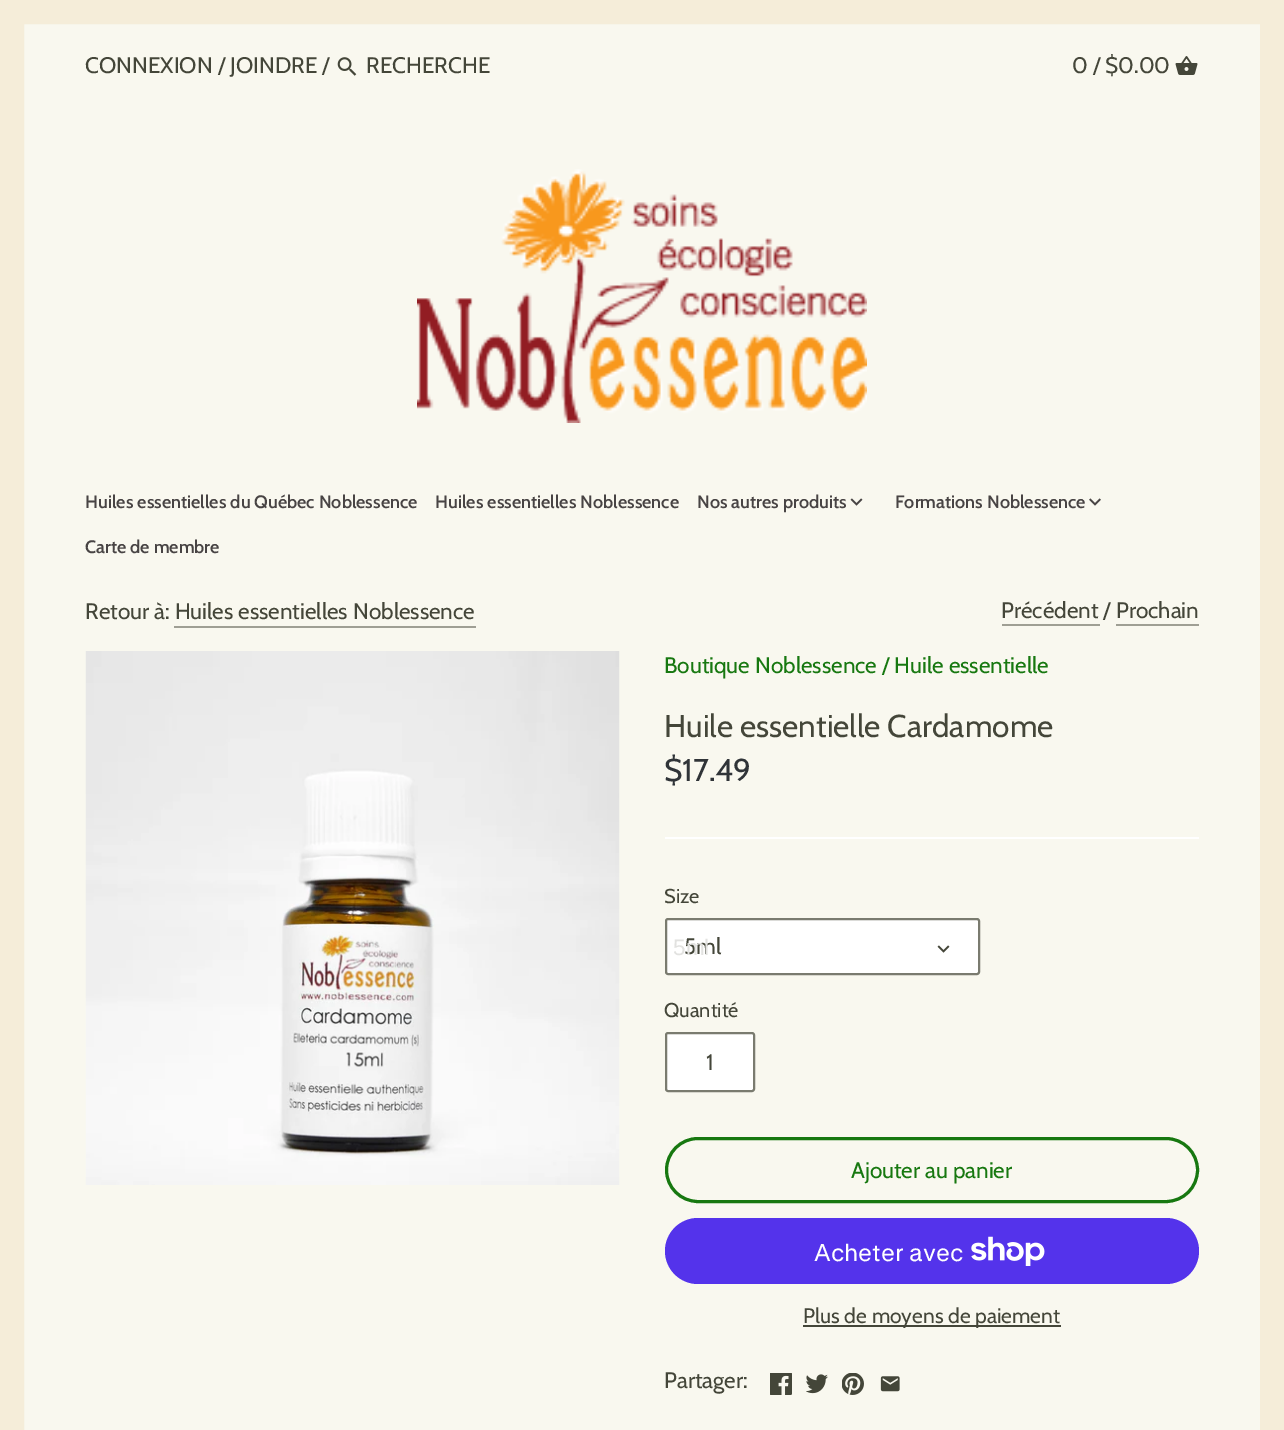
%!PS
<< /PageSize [1284 1430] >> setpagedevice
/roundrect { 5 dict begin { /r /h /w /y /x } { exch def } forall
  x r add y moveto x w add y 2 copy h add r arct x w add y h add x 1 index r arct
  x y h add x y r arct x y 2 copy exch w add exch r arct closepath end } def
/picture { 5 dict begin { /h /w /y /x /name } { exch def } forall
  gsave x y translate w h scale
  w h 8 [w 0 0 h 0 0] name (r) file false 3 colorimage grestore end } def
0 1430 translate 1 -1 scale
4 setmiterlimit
0.976 0.973 0.937 setrgbcolor
0 0 1284 1430 rectfill
0.961 0.929 0.851 setrgbcolor
24 setlinewidth
12 12 1260 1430 rectstroke
/Cabin-Regular [22.5 0 0 -22.5 0 0] selectfont
0.267 0.275 0.224 setrgbcolor
85 73 moveto (CONNEXION / JOINDRE /) show
(img1.rgb) 337 57 20 19 picture
366 73 moveto (RECHERCHE) show
1072 73 moveto (0 / $0.00) show
(img2.rgb) 1175 56 23 19 picture
(img3.rgb) 417 169 450 254 picture
/Cabin-SemiBold [18 0 0 -18 0 0] selectfont
0.282 0.267 0.267 setrgbcolor
85 508 moveto (Huiles essentielles du Québec Noblessence) show
435 508 moveto (Huiles essentielles Noblessence) show
697 508 moveto (Nos autres produits) show
(img4.rgb) 850 498 13 8 picture
895 508 moveto (Formations Noblessence) show
(img5.rgb) 1089 498 12 8 picture
85 553 moveto (Carte de membre) show
/Cabin-Regular [22.5 0 0 -22.5 0 0] selectfont
0.267 0.275 0.224 setrgbcolor
85 619 moveto (Retour à: Huiles essentielles Noblessence) show
0.624 0.624 0.58 setrgbcolor
174 626 302 2 rectfill
0.267 0.275 0.224 setrgbcolor
1001 618 moveto (Précédent / Prochain) show
0.624 0.624 0.58 setrgbcolor
1002 624 98 2 rectfill
1116 624 83 2 rectfill
(img6.rgb) 85 651 535 534 picture
1 setgray
665 837 534 2 rectfill
0.09 0.471 0.063 setrgbcolor
664 673 moveto (Boutique Noblessence / Huile essentielle) show
/Cabin-Regular [31.5 0 0 -31.5 0 0] selectfont
0.267 0.275 0.224 setrgbcolor
664 737 moveto (Huile essentielle Cardamome) show
0.188 0.204 0.22 setrgbcolor
664 781 moveto ($17.49) show
/Cabin-Regular [20 0 0 -20 0 0] selectfont
0.267 0.275 0.224 setrgbcolor
664 903 moveto (Size) show
1 setgray
666 919 313 55 2 roundrect gsave fill grestore
0.478 0.482 0.435 setrgbcolor
2 setlinewidth
stroke
/Cabin-Regular [22.5 0 0 -22.5 0 0] selectfont
0.267 0.275 0.224 setrgbcolor
684 954 moveto (5ml) show
/LiberationSans-Regular [22.5 0 0 -22.5 0 0] selectfont
0.886 0.886 0.878 setrgbcolor
673 955 moveto (5ml) show
(img7.rgb) 937 945 13 8 picture
/Cabin-Regular [20 0 0 -20 0 0] selectfont
0.267 0.275 0.224 setrgbcolor
664 1017 moveto (Quantité) show
1 setgray
666 1033 88 58 2 roundrect gsave fill grestore
0.478 0.482 0.435 setrgbcolor
stroke
/Cabin-Regular [22.5 0 0 -22.5 0 0] selectfont
0.267 0.275 0.224 setrgbcolor
706 1070 moveto (1) show
0.09 0.471 0.063 setrgbcolor
3 setlinewidth
666.5 1138.5 531 63 31.5 roundrect stroke
851 1178 moveto (Ajouter au panier) show
0.329 0.2 0.922 setrgbcolor
665 1218 534 66 33 roundrect fill
/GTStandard-Regular [24 0 0 -24 0 0] selectfont
1 setgray
814 1261 moveto (Acheter avec) show
(img8.rgb) 971 1236 74 30 picture
0.267 0.275 0.224 setrgbcolor
803 1325 258 2 rectfill
/Cabin-Regular [21 0 0 -21 0 0] selectfont
803 1323 moveto (Plus de moyens de paiement) show
/Cabin-Regular [22.5 0 0 -22.5 0 0] selectfont
664 1388 moveto (Partager:) show
(img9.rgb) 770 1373 22 22 picture
(img10.rgb) 806 1374 22 20 picture
(img11.rgb) 842 1373 22 22 picture
(img12.rgb) 880 1376 20 16 picture
showpage
